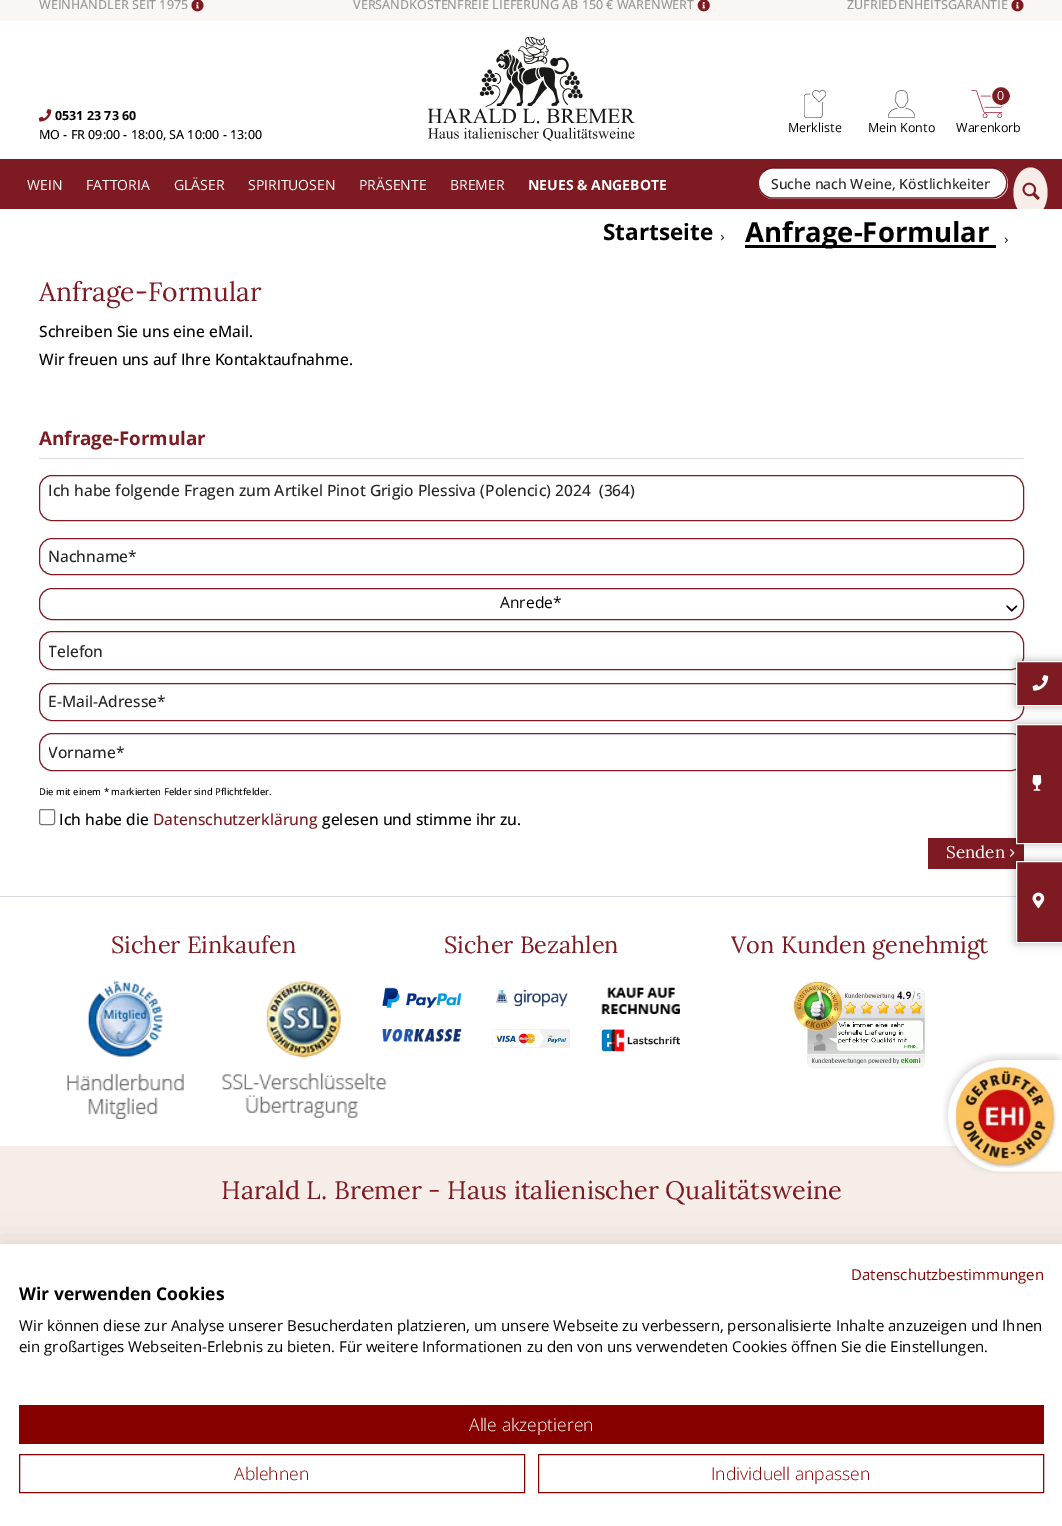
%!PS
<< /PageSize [1062 1526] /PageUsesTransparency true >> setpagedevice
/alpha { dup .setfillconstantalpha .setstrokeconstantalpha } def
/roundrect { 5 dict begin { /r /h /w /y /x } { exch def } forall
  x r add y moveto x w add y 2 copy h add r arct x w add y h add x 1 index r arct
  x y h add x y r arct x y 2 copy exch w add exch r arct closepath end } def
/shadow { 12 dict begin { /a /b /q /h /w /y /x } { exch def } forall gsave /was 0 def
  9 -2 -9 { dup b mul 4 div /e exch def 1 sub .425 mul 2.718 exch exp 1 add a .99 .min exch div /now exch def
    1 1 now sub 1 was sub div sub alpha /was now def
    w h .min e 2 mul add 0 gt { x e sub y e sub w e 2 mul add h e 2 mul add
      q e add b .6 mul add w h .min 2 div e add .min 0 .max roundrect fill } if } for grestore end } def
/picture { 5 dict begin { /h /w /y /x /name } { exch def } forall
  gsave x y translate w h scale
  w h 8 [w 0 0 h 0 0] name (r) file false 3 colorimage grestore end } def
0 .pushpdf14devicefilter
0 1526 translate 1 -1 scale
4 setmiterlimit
1 setgray
0 0 1062 1526 rectfill
0.976 0.965 0.953 setrgbcolor
0 0 1062 21 rectfill
/OpenSans-Medium [12.5 0 0 -12.5 0 0] selectfont
0.592 0.588 0.584 setrgbcolor
39 9 moveto (WEINHÄNDLER SEIT 1975) show
(img1.rgb) 191 0 13 12 picture
353 9 moveto (VERSANDKOSTENFREIE LIEFERUNG AB 150 € WARENWERT) show
(img2.rgb) 697 0 13 12 picture
847 9 moveto (ZUFRIEDENHEITSGARANTIE) show
(img1.rgb) 1011 0 13 12 picture
(img3.rgb) 38 109 14 13 picture
/OpenSans-Bold [12.5 0 0 -12.5 0 0] selectfont
0 setgray
55 120 moveto (0531 23 73 60) show
/OpenSans-Medium [12.5 0 0 -12.5 0 0] selectfont
39 139 moveto (MO - FR 09:00 - 18:00, SA 10:00 - 13:00) show
(img4.rgb) 428 37 207 105 picture
(img5.rgb) 804 90 22 28 picture
/OpenSans-Regular [12.5 0 0 -12.5 0 0] selectfont
788 132 moveto (Merkliste) show
(img6.rgb) 888 90 27 28 picture
868 132 moveto (Mein Konto) show
(img7.rgb) 971 90 32 28 picture
0.494 0.102 0.129 setrgbcolor
newpath 1001 96 9.5 0 360 arc closepath gsave fill grestore
1 setgray
stroke
997 100 moveto (0) show
0 setgray
956 132 moveto (Warenkorb) show
0.494 0.102 0.129 setrgbcolor
0 159 1062 50 rectfill
/OpenSans-Regular [14 0 0 -14 0 0] selectfont
1 setgray
27 190 moveto (WEIN) show
86 190 moveto (FATTORIA) show
174 190 moveto (GLÄSER) show
248 190 moveto (SPIRITUOSEN) show
359 190 moveto (PRÄSENTE) show
450 190 moveto (BREMER) show
/OpenSans-Bold [14 0 0 -14 0 0] selectfont
528 190 moveto (NEUES & ANGEBOTE) show
758 168 250 31 15.5 roundrect fill
0.412 0.086 0.106 setrgbcolor
1.2 setlinewidth
newpath 762.5 172.5 moveto 765.5 169.5 769 168 773 168 curveto 992 168 lineto 996 168 999.5 169.5 1002.5 172.5 curveto stroke
0.494 0.102 0.129 setrgbcolor
newpath 1002.5 172.5 moveto 1005 176 lineto 1007 179.5 1007.5 183.5 1006 187.5 curveto 1004.5 193.5 998.5 198 992 198 curveto 771.5 198 lineto 759.5 197 753.5 181.5 762.5 172.5 curveto stroke
gsave
771 174 219 19 rectclip
/OpenSans-Medium [14 0 0 -14 0 0] selectfont
0.149 setgray
771 189 moveto (Suche nach Weine, Köstlichkeiten) show
grestore
gsave
16 159 1032 50 rectclip
0.965 0.925 0.91 setrgbcolor
newpath 1030.5 167.5 moveto 1040 167.5 1047.5 178.5 1047.5 192.5 curveto 1047.5 206.5 1040 217.5 1030.5 217.5 curveto 1021 217.5 1013.5 206.5 1013.5 192.5 curveto 1013.5 178.5 1021 167.5 1030.5 167.5 curveto closepath fill
grestore
(img8.rgb) 1022 182 18 18 picture
/OpenSans-Bold [22.5 0 0 -22.5 0 0] selectfont
0 setgray
603 240 moveto (Startseite) show
(img9.rgb) 720 234 4 7 picture
745 245 251 3 rectfill
/OpenSans-Bold [27.5 0 0 -27.5 0 0] selectfont
745 242 moveto (Anfrage-Formular) show
(img10.rgb) 1004 237 4 6 picture
/Lora-Regular [26.5 0 0 -26.5 0 0] selectfont
0.494 0.102 0.129 setrgbcolor
39 301 moveto (Anfrage-Formular) show
/OpenSans-Medium [15.6 0 0 -15.6 0 0] selectfont
0 setgray
39 337 moveto (Schreiben Sie uns eine eMail.) show
39 365 moveto (Wir freuen uns auf Ihre Kontaktaufnahme.) show
0.855 0.855 0.898 setrgbcolor
39 458 985 1 rectfill
/OpenSans-Bold [18.75 0 0 -18.75 0 0] selectfont
0.494 0.102 0.129 setrgbcolor
39 445 moveto (Anfrage-Formular) show
1 setlinewidth
39.5 475.5 984 45 12.5 roundrect stroke
/OpenSans-Medium [15.6 0 0 -15.6 0 0] selectfont
0.149 setgray
48 496 moveto (Ich habe folgende Fragen zum Artikel Pinot Grigio Plessiva \(Polencic\) 2024  \(364\)) show
0.494 0.102 0.129 setrgbcolor
39.5 538.5 984 36 12.5 roundrect stroke
0.149 setgray
48 562 moveto (Nachname*) show
0.494 0.102 0.129 setrgbcolor
39.5 588.5 984 31 12.5 roundrect stroke
/OpenSans-Regular [15.6 0 0 -15.6 0 0] selectfont
0 setgray
500 608 moveto (Anrede*) show
(img11.rgb) 1006 605 12 7 picture
0.494 0.102 0.129 setrgbcolor
39.5 631.5 984 38 12.5 roundrect stroke
gsave
49 641 966 22 rectclip
/OpenSans-Medium [15.6 0 0 -15.6 0 0] selectfont
0.149 setgray
48 657 moveto (Telefon) show
grestore
39.5 683.5 984 37 12.5 roundrect stroke
/OpenSans-Medium [15.6 0 0 -15.6 0 0] selectfont
0.149 setgray
48 707 moveto (E-Mail-Adresse*) show
0.494 0.102 0.129 setrgbcolor
39.5 733.5 984 37 12.5 roundrect stroke
gsave
49 741 966 22 rectclip
0.149 setgray
48 758 moveto (Vorname*) show
grestore
/OpenSans-Medium [9.4 0 0 -9.4 0 0] selectfont
0 setgray
39 795 moveto (Die mit einem * markierten Felder sind Pflichtfelder.) show
0.463 setgray
39.5 809.5 15 15 2 roundrect stroke
/OpenSans-Medium [15.6 0 0 -15.6 0 0] selectfont
0 setgray
59 825 moveto (Ich habe die) show
0.494 0.102 0.129 setrgbcolor
153 825 moveto (Datenschutzerklärung) show
0 setgray
322 825 moveto (gelesen und stimme ihr zu.) show
0.494 0.102 0.129 setrgbcolor
928 838 96 31 rectfill
/Lora-Regular [17 0 0 -17 0 0] selectfont
1 setgray
946 858 moveto (Senden) show
(img12.rgb) 1010 849 5 8 picture
0.855 0.855 0.898 setrgbcolor
0 896 1016 1 rectfill
0.965 0.929 0.91 setrgbcolor
0 1146 1062 98 rectfill
0 setgray
1016 661 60 45 0 4.5 0.3 shadow
0.494 0.102 0.129 setrgbcolor
newpath 1016.5 661.5 moveto 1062.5 661.5 lineto 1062.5 705.5 lineto 1016.5 705.5 lineto closepath gsave fill grestore
1 setgray
stroke
(img13.rgb) 1032 675 17 16 picture
0 setgray
1016 724 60 120 0 4.5 0.3 shadow
0.494 0.102 0.129 setrgbcolor
newpath 1016.5 724.5 moveto 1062.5 724.5 lineto 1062.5 843.5 lineto 1016.5 843.5 lineto closepath gsave fill grestore
1 setgray
stroke
(img14.rgb) 1032 775 10 16 picture
/Lora-Regular [23.5 0 0 -23.5 0 0] selectfont
0.494 0.102 0.129 setrgbcolor
111 953 moveto (Sicher Einkaufen) show
(img15.rgb) 67 981 117 138 picture
(img16.rgb) 222 981 165 137 picture
444 953 moveto (Sicher Bezahlen) show
(img17.rgb) 382 987 80 21 picture
(img18.rgb) 496 989 72 18 picture
(img19.rgb) 601 987 79 27 picture
(img20.rgb) 382 1029 80 13 picture
(img21.rgb) 492 1029 78 19 picture
(img22.rgb) 601 1029 79 23 picture
731 953 moveto (Von Kunden genehmigt) show
(img23.rgb) 793 981 132 87 picture
(img24.rgb) 943 1053 119 121 picture
0 setgray
1016 861 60 82 0 4.5 0.3 shadow
0.494 0.102 0.129 setrgbcolor
newpath 1016.5 861.5 moveto 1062.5 861.5 lineto 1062.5 942.5 lineto 1016.5 942.5 lineto closepath gsave fill grestore
1 setgray
stroke
(img25.rgb) 1032 892 13 17 picture
/Lora-Regular [25.3 0 0 -25.3 0 0] selectfont
0.494 0.102 0.129 setrgbcolor
221 1199 moveto (Harald L. Bremer - Haus italienischer Qualitätsweine) show
0 setgray
0 1244 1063 282 0 15 0.1 shadow
1 setgray
0 1244 1062 282 rectfill
/OpenSans-Regular [15 0 0 -15 0 0] selectfont
0.533 0.004 0.004 setrgbcolor
851 1280 moveto (Datenschutzbestimmungen) show
/OpenSans-Bold [17.5 0 0 -17.5 0 0] selectfont
0 setgray
19 1300 moveto (Wir verwenden Cookies) show
/OpenSans-Regular [15 0 0 -15 0 0] selectfont
19 1331 moveto (Wir können diese zur Analyse unserer Besucherdaten platzieren, um unsere Webseite zu verbessern, personalisierte Inhalte anzuzeigen und Ihnen) show
19 1352 moveto (ein großartiges Webseiten-Erlebnis zu bieten. Für weitere Informationen zu den von uns verwendeten Cookies öffnen Sie die Einstellungen.) show
0.533 0.004 0.004 setrgbcolor
19 1405 1025 39 rectfill
/OpenSans-Light [17.5 0 0 -17.5 0 0] selectfont
1 setgray
469 1431 moveto (Alle akzeptieren) show
0.533 0.004 0.004 setrgbcolor
19.5 1454.5 505 38 rectstroke
234 1480 moveto (Ablehnen) show
538.5 1454.5 505 38 rectstroke
711 1480 moveto (Individuell anpassen) show
.poppdf14devicefilter showpage
